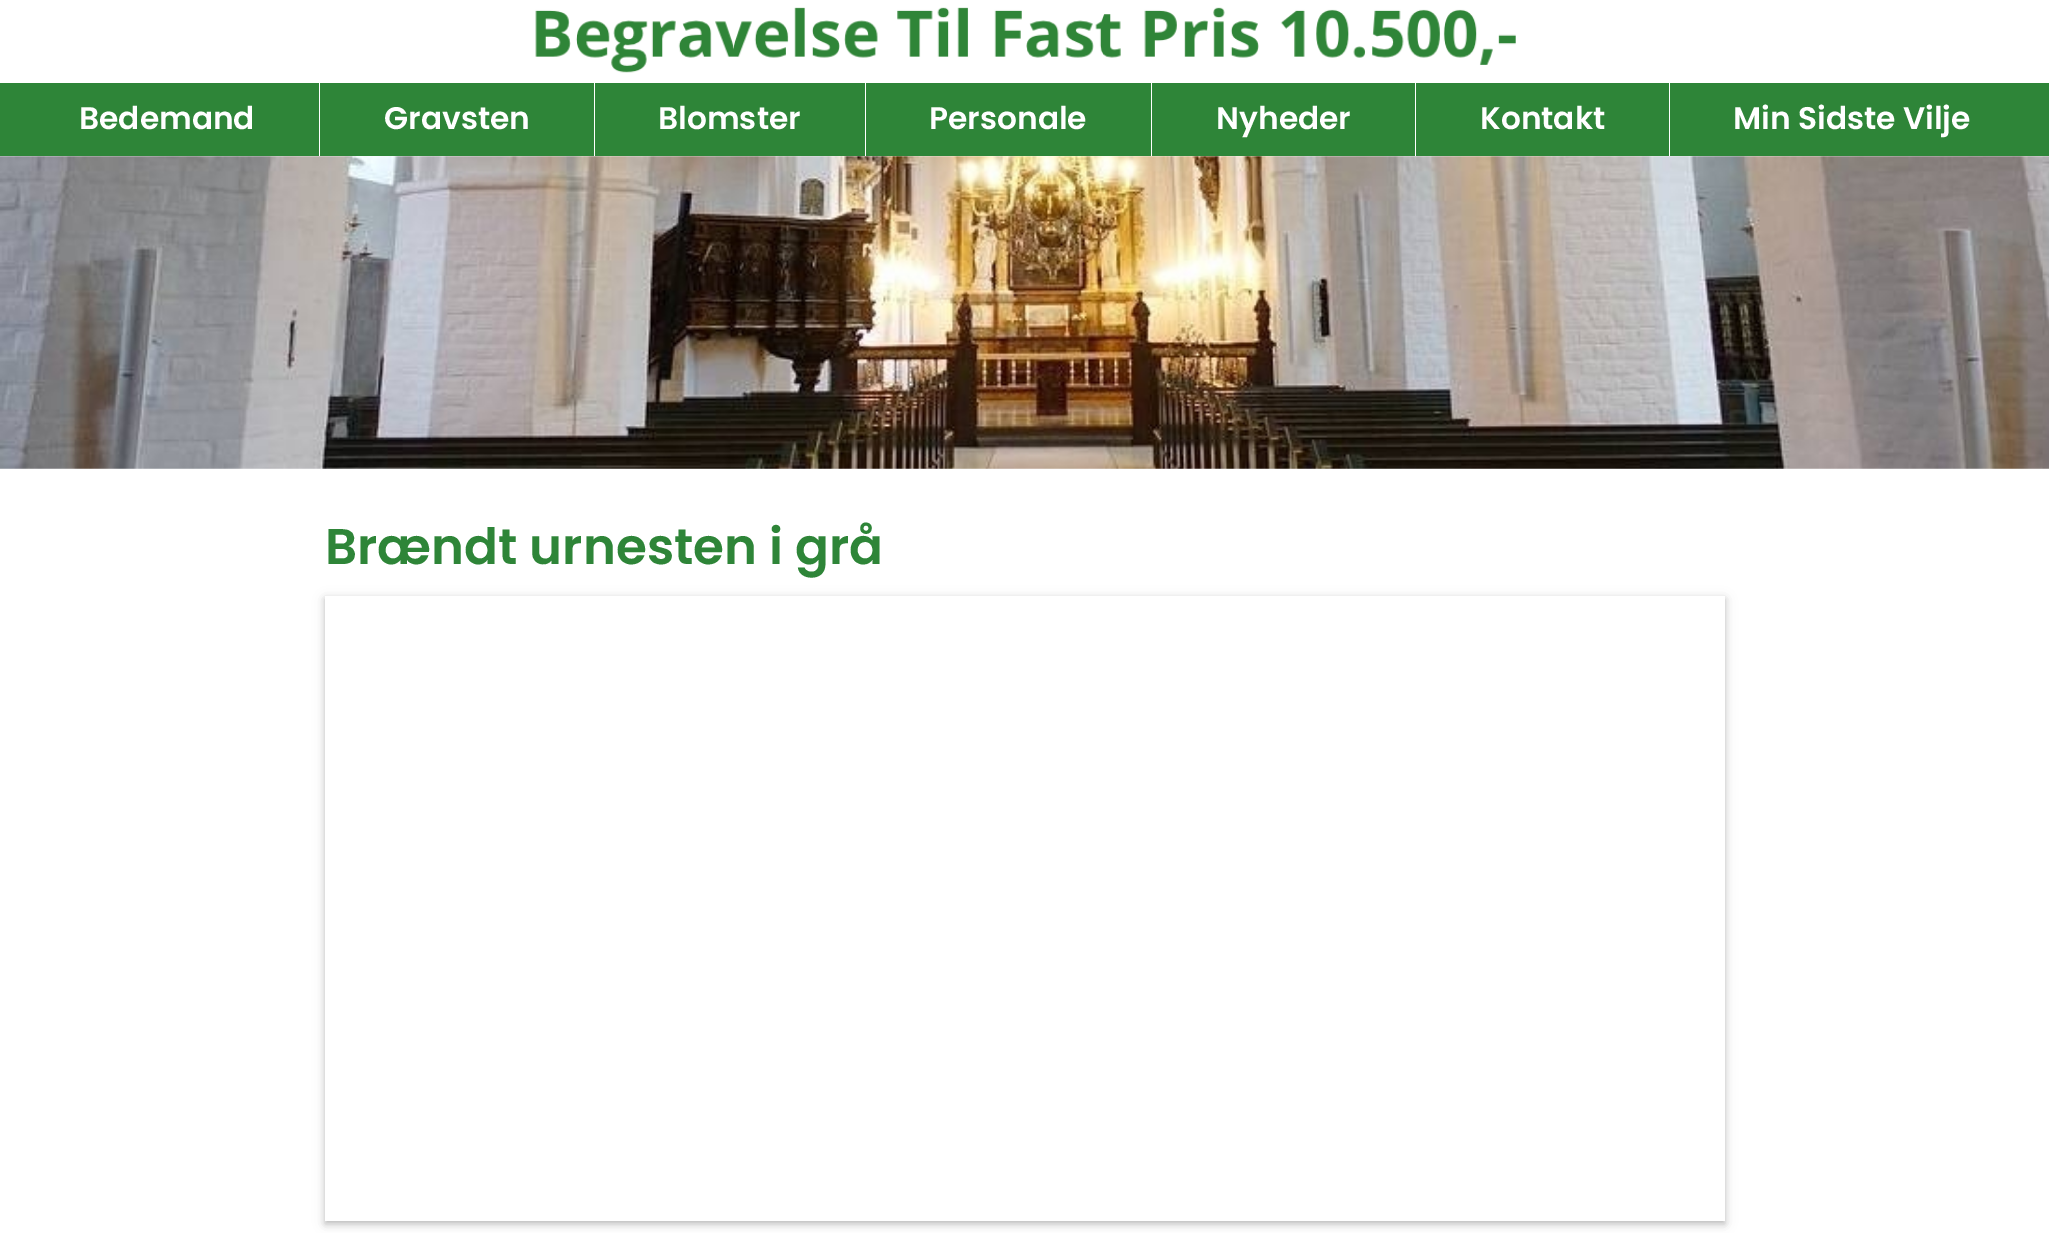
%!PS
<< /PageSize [2049 1233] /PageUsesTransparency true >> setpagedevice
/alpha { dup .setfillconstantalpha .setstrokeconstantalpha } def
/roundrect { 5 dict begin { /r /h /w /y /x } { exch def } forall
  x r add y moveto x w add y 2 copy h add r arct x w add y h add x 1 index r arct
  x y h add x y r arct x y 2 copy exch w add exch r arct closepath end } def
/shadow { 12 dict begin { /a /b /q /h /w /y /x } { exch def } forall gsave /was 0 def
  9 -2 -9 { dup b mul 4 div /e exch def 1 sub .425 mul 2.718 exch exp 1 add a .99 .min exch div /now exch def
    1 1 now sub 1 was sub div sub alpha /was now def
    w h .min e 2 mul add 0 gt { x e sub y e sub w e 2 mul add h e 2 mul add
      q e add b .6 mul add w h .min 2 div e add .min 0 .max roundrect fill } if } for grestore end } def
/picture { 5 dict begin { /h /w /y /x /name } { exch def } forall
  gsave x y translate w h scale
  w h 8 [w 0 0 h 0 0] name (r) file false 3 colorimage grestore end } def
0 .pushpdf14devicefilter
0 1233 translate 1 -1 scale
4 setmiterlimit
1 setgray
0 0 2049 1233 rectfill
(img1.rgb) 535 7 981 66 picture
0.18 0.522 0.22 setrgbcolor
0 83 2049 73 rectfill
/Poppins-SemiBold [31.25 0 0 -31.25 0 0] selectfont
1 setgray
79 129 moveto (Bedemand) show
319 83 1 73 rectfill
384 129 moveto (Gravsten) show
594 83 1 73 rectfill
658 129 moveto (Blomster) show
865 83 1 73 rectfill
929 129 moveto (Personale) show
1151 83 1 73 rectfill
1216 129 moveto (Nyheder) show
1415 83 1 73 rectfill
1480 129 moveto (Kontakt) show
1669 83 1 73 rectfill
1733 129 moveto (Min Sidste Vilje) show
(img2.rgb) 0 156 2049 313 picture
/Poppins-SemiBold [50 0 0 -50 0 0] selectfont
0.18 0.522 0.22 setrgbcolor
325 564 moveto (Brændt urnesten i grå) show
gsave
newpath 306 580 moveto 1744 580 lineto 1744 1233 lineto 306 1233 lineto closepath 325 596 moveto 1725 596 lineto 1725 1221 lineto 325 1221 lineto closepath eoclip newpath
0 setgray
325 599 1400 625 0 6 0.12 shadow
grestore
gsave
newpath 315 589 moveto 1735 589 lineto 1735 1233 lineto 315 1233 lineto closepath 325 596 moveto 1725 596 lineto 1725 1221 lineto 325 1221 lineto closepath eoclip newpath
0 setgray
325 599 1400 625 0 3 0.16 shadow
grestore
.poppdf14devicefilter showpage
